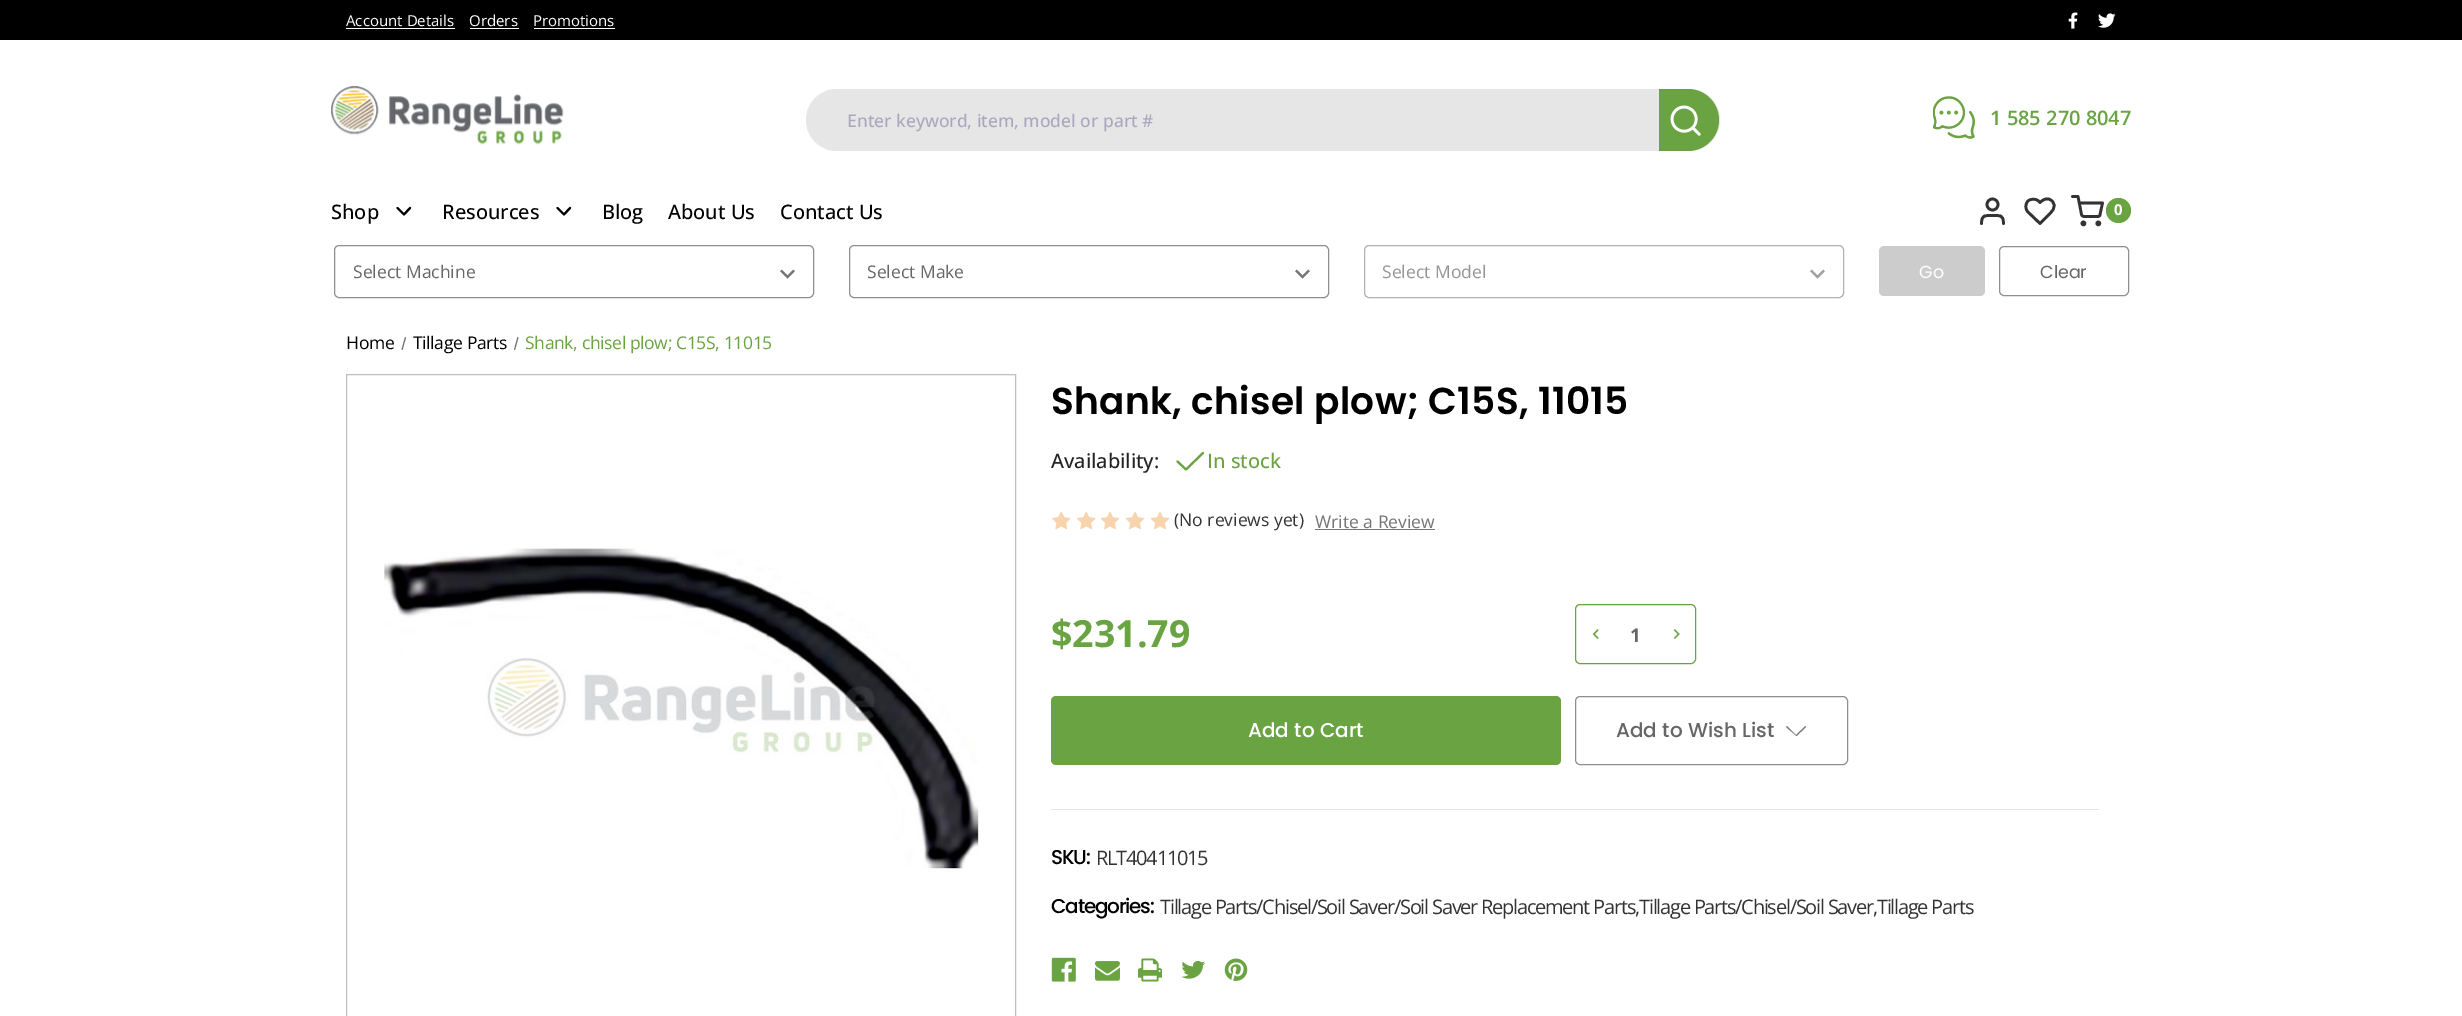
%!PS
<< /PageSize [2462 1016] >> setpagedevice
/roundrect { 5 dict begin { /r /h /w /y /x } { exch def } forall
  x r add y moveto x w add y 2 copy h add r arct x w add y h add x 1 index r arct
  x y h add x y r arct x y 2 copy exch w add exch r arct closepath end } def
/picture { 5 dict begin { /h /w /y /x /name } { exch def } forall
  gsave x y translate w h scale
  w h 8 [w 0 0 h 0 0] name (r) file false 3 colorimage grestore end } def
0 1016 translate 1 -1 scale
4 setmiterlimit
1 setgray
0 0 2462 1016 rectfill
0 setgray
0 0 2462 40 rectfill
/OpenSans-Regular [15 0 0 -15 0 0] selectfont
1 setgray
346 26 moveto (Account Details) show
346 28 109 1 rectfill
469 26 moveto (Orders) show
470 28 49 1 rectfill
533 26 moveto (Promotions) show
534 28 81 1 rectfill
(img1.rgb) 2068 12 10 17 picture
(img2.rgb) 2098 13 18 15 picture
(img3.rgb) 331 86 233 59 picture
0.902 setgray
806 89 914 62 31 roundrect fill
/OpenSans-Medium [17.5 0 0 -17.5 0 0] selectfont
0.663 0.659 0.745 setrgbcolor
847 127 moveto (Enter keyword, item, model or part #) show
0.416 0.639 0.259 setrgbcolor
newpath 1659 89 moveto 1688 89 lineto 1705 89 1719 103 1719 120 curveto 1719 137 1705 151 1688 151 curveto 1659 151 lineto closepath fill
(img4.rgb) 1670 105 31 31 picture
(img5.rgb) 1933 96 42 43 picture
/OpenSans-SemiBold [20 0 0 -20 0 0] selectfont
1990 125 moveto (1 585 270 8047) show
/OpenSans-Medium [20 0 0 -20 0 0] selectfont
0 setgray
331 219 moveto (Shop) show
2.1 setlinewidth
1 setlinecap
1 setlinejoin
newpath 397.5 208 moveto 404 214.5 lineto 410 208 lineto stroke
442 219 moveto (Resources) show
newpath 557.5 208 moveto 564 214.5 lineto 570 208 lineto stroke
602 219 moveto (Blog) show
668 219 moveto (About Us) show
780 219 moveto (Contact Us) show
0.2 setgray
2.7 setlinewidth
newpath 2003.5 223.5 moveto 2003.5 214.5 2000 215.5 1992.5 215.5 curveto 1985 215.5 1981.5 214.5 1981.5 223.5 curveto stroke
0 setlinecap
0 setlinejoin
newpath 1992.5 204.5 5.5 0 360 arc closepath stroke
1 setlinecap
1 setlinejoin
newpath 2052 201 moveto 2048 197 2043.5 199 2040 202.5 curveto 2038.5 201 lineto 2035.5 198.5 2031 198.5 2028 201 curveto 2025 204 2025 209 2028 212 curveto 2040 223.5 lineto 2047 216.5 lineto 2051 212.5 2058 207 2052 201 curveto closepath stroke
0 setlinecap
0 setlinejoin
newpath 2083.4 223.4 1.4 0 360 arc closepath stroke
newpath 2098.3 223.4 1.4 0 360 arc closepath stroke
1 setlinecap
1 setlinejoin
newpath 2072.5 196.5 moveto 2078 196.5 lineto 2081.5 214.5 lineto 2082 216 2083 216.5 2084.5 216.5 curveto 2097.5 216.5 lineto 2099 216.5 2100 216 2100 214.5 curveto 2102.5 203 lineto 2079.5 203 lineto stroke
0.416 0.639 0.259 setrgbcolor
newpath 2118.5 210.5 12.5 0 360 arc closepath fill
/OpenSans-Bold [15 0 0 -15 0 0] selectfont
1 setgray
2114 215 moveto (0) show
(img6.rgb) 780 269 15 10 picture
0.561 setgray
1 setlinewidth
0 setlinecap
0 setlinejoin
334.5 245.5 479 52 4.5 roundrect stroke
/OpenSans-Regular [17.5 0 0 -17.5 0 0] selectfont
0.4 setgray
353 278 moveto (Select Machine) show
(img6.rgb) 1295 269 15 10 picture
0.561 setgray
849.5 245.5 479 52 4.5 roundrect stroke
0.4 setgray
867 278 moveto (Select Make) show
(img7.rgb) 1810 269 15 10 picture
0.694 setgray
1364.5 245.5 479 52 4.5 roundrect stroke
0.58 setgray
1382 278 moveto (Select Model) show
0.8 setgray
1879 246 106 50 5 roundrect fill
/Poppins-Regular [17.5 0 0 -17.5 0 0] selectfont
1 setgray
1919 278 moveto (Go) show
0.561 setgray
1999.5 246.5 129 49 4.5 roundrect stroke
0.4 setgray
2040 278 moveto (Clear) show
/OpenSans-Regular [17.5 0 0 -17.5 0 0] selectfont
0 setgray
346 349 moveto -0.35 0 (Home) ashow
0.459 setgray
newpath 405 337 moveto 406 337.5 lineto 402.5 350 lineto 401.5 349.5 lineto closepath fill
0 setgray
413 349 moveto -0.35 0 (Tillage Parts) ashow
0.459 setgray
newpath 517.5 337 moveto 518.5 337.5 lineto 515 350 lineto 514 349.5 lineto closepath fill
0.416 0.639 0.259 setrgbcolor
525 349 moveto -0.35 0 (Shank, chisel plow; C15S, 11015) ashow
0.749 setgray
346.5 374.5 669 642 rectstroke
(img8.rgb) 384 548 595 325 picture
0.898 setgray
1051 809 1048 1 rectfill
/Poppins-SemiBold [37.5 0 0 -37.5 0 0] selectfont
0 setgray
1051 414 moveto 0.3 0 (Shank, chisel plow; C15S, 11015) ashow
/OpenSans-Medium [20 0 0 -20 0 0] selectfont
0.137 setgray
1051 468 moveto (Availability:) show
0.416 0.639 0.259 setrgbcolor
2.1 setlinewidth
1 setlinecap
1 setlinejoin
newpath 1177.5 461.5 moveto 1186 469.5 lineto 1203 453 lineto stroke
1207 468 moveto (In stock) show
(img9.rgb) 1052 511 19 19 picture
(img9.rgb) 1077 511 19 19 picture
(img10.rgb) 1100 511 20 19 picture
(img10.rgb) 1125 511 20 19 picture
(img10.rgb) 1150 511 20 19 picture
/OpenSans-Regular [17.5 0 0 -17.5 0 0] selectfont
0.2 setgray
1174 526 moveto (\(No reviews yet\)) show
0.459 setgray
1315 528 moveto (Write a Review) show
1315 529 120 1 rectfill
/OpenSans-Bold [37.5 0 0 -37.5 0 0] selectfont
0.416 0.639 0.259 setrgbcolor
1051 647 moveto ($231.79) show
1 setlinewidth
0 setlinecap
0 setlinejoin
1575.5 604.5 120 59 4.5 roundrect stroke
(img11.rgb) 1592 629 7 10 picture
/OpenSans-Bold [19 0 0 -19 0 0] selectfont
0.4 setgray
1630 642 moveto (1) show
(img12.rgb) 1673 629 7 10 picture
0.416 0.639 0.259 setrgbcolor
1051 696 510 69 5 roundrect fill
/Poppins-Medium [20 0 0 -20 0 0] selectfont
1 setgray
1248 737 moveto (Add to Cart) show
0.561 setgray
1575.5 696.5 272 68 4.5 roundrect stroke
0.4 setgray
1616 737 moveto (Add to Wish List) show
0.459 setgray
newpath 1796 735 moveto 1805.5 726 lineto 1806 727 lineto 1796.5 736 lineto 1786 727 lineto 1787 726 lineto closepath eofill
0 setgray
1051 864 moveto -1.25 0 (SKU:) ashow
/OpenSans-Regular [20 0 0 -20 0 0] selectfont
0.2 setgray
1096 865 moveto -1.25 0 (RLT40411015) ashow
/Poppins-Medium [20 0 0 -20 0 0] selectfont
0 setgray
1051 913 moveto -1.25 0 (Categories:) ashow
/OpenSans-Regular [20 0 0 -20 0 0] selectfont
0.2 setgray
1160 914 moveto -1.25 0 (Tillage Parts/Chisel/Soil Saver/Soil Saver Replacement Parts,Tillage Parts/Chisel/Soil Saver,Tillage Parts) ashow
(img13.rgb) 1051 957 25 25 picture
(img14.rgb) 1095 961 25 20 picture
(img15.rgb) 1138 958 24 24 picture
(img16.rgb) 1181 960 25 19 picture
(img17.rgb) 1224 958 24 23 picture
showpage
